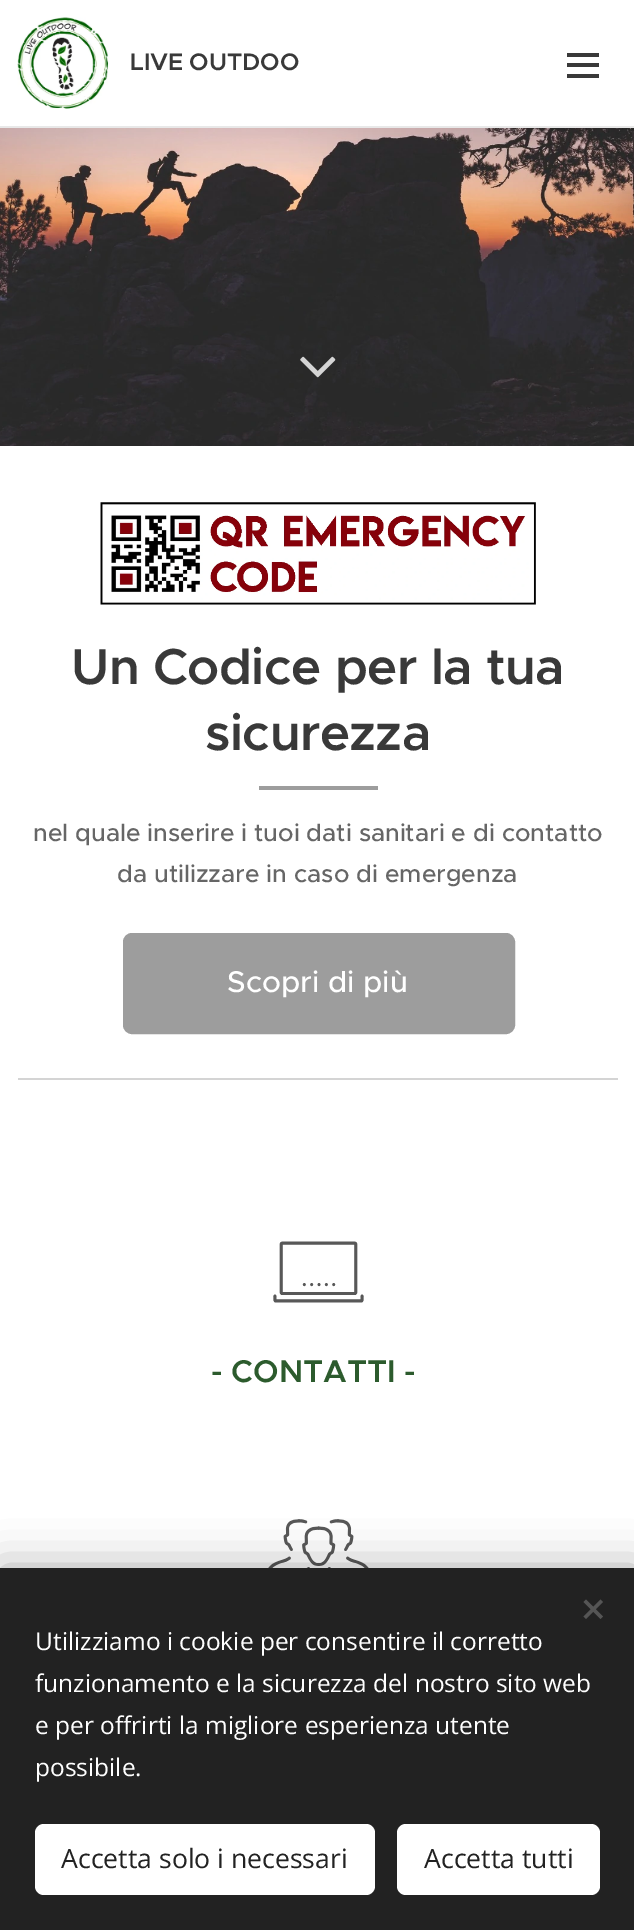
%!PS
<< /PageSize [634 1930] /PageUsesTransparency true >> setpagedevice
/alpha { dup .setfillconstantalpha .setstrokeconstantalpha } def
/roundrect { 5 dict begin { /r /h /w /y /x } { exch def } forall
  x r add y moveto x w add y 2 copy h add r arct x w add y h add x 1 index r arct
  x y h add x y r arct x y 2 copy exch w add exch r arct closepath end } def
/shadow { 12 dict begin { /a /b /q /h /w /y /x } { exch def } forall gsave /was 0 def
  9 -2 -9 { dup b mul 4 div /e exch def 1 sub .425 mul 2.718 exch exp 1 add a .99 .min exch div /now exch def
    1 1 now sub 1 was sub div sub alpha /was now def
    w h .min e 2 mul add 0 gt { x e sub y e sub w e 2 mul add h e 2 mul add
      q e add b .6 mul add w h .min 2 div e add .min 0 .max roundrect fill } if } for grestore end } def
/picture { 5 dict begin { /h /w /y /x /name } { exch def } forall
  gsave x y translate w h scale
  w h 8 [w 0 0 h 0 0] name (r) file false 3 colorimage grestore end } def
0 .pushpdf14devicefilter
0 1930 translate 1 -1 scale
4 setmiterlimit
1 setgray
0 0 634 1930 rectfill
0.91 setgray
0 126 634 2 rectfill
(img1.rgb) 17 17 92 92 picture
/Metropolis-SemiBold [24 0 0 -24 0 0] selectfont
0.224 setgray
130 70 moveto -1 0 32 (LIVE OUTDOO) widthshow
567 63 32 4 rectfill
567 53 32 4 rectfill
567 74 32 4 rectfill
(img2.rgb) 0 128 634 318 picture
(img3.rgb) 300 356 36 22 picture
(img4.rgb) 100 502 436 103 picture
/Metropolis-SemiBold [50.75 0 0 -50.75 0 0] selectfont
71 684 moveto -0.5 0 (Un Codice per la tua) ashow
205 750 moveto -0.5 0 (sicurezza) ashow
0.616 setgray
259 786 119 4 rectfill
/Metropolis-Medium [24.5 0 0 -24.5 0 0] selectfont
0.4 setgray
33 841 moveto (nel quale inserire i tuoi dati sanitari e di contatto) show
117 882 moveto (da utilizzare in caso di emergenza) show
0.616 setgray
124 934 390 99 8 roundrect gsave fill grestore
2 setlinewidth
stroke
/Metropolis-Medium [30 0 0 -30 0 0] selectfont
1 setgray
227 992 moveto (Scopri di più) show
0.831 setgray
18 1078 600 2 rectfill
(img5.rgb) 273 1241 91 62 picture
/Metropolis-SemiBold [31.5 0 0 -31.5 0 0] selectfont
0.173 0.357 0.176 setrgbcolor
211 1382 moveto (- CONTATTI -) show
(img6.rgb) 268 1519 101 49 picture
0 setgray
0 1568 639 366 0 22 0.33 shadow
0.133 setgray
0 1568 634 362 rectfill
0.333 setgray
newpath 583.5 1616.5 moveto 600.5 1599.5 lineto 603 1602 lineto 586 1619 lineto closepath fill
newpath 586 1599.5 moveto 603 1616.5 lineto 600.5 1619 lineto 583.5 1602 lineto closepath fill
/OpenSans-Regular [24.5 0 0 -24.5 0 0] selectfont
1 setgray
35 1650 moveto (Utilizziamo i cookie per consentire il corretto) show
35 1692 moveto (funzionamento e la sicurezza del nostro sito web) show
35 1734 moveto (e per offrirti la migliore esperienza utente) show
35 1776 moveto (possibile.) show
35 1824 340 71 9 roundrect fill
/OpenSans-Regular [26.6 0 0 -26.6 0 0] selectfont
0.133 setgray
61 1868 moveto (Accetta solo i necessari) show
1 setgray
397 1824 203 71 9 roundrect fill
0.133 setgray
424 1868 moveto (Accetta tutti) show
.poppdf14devicefilter showpage
